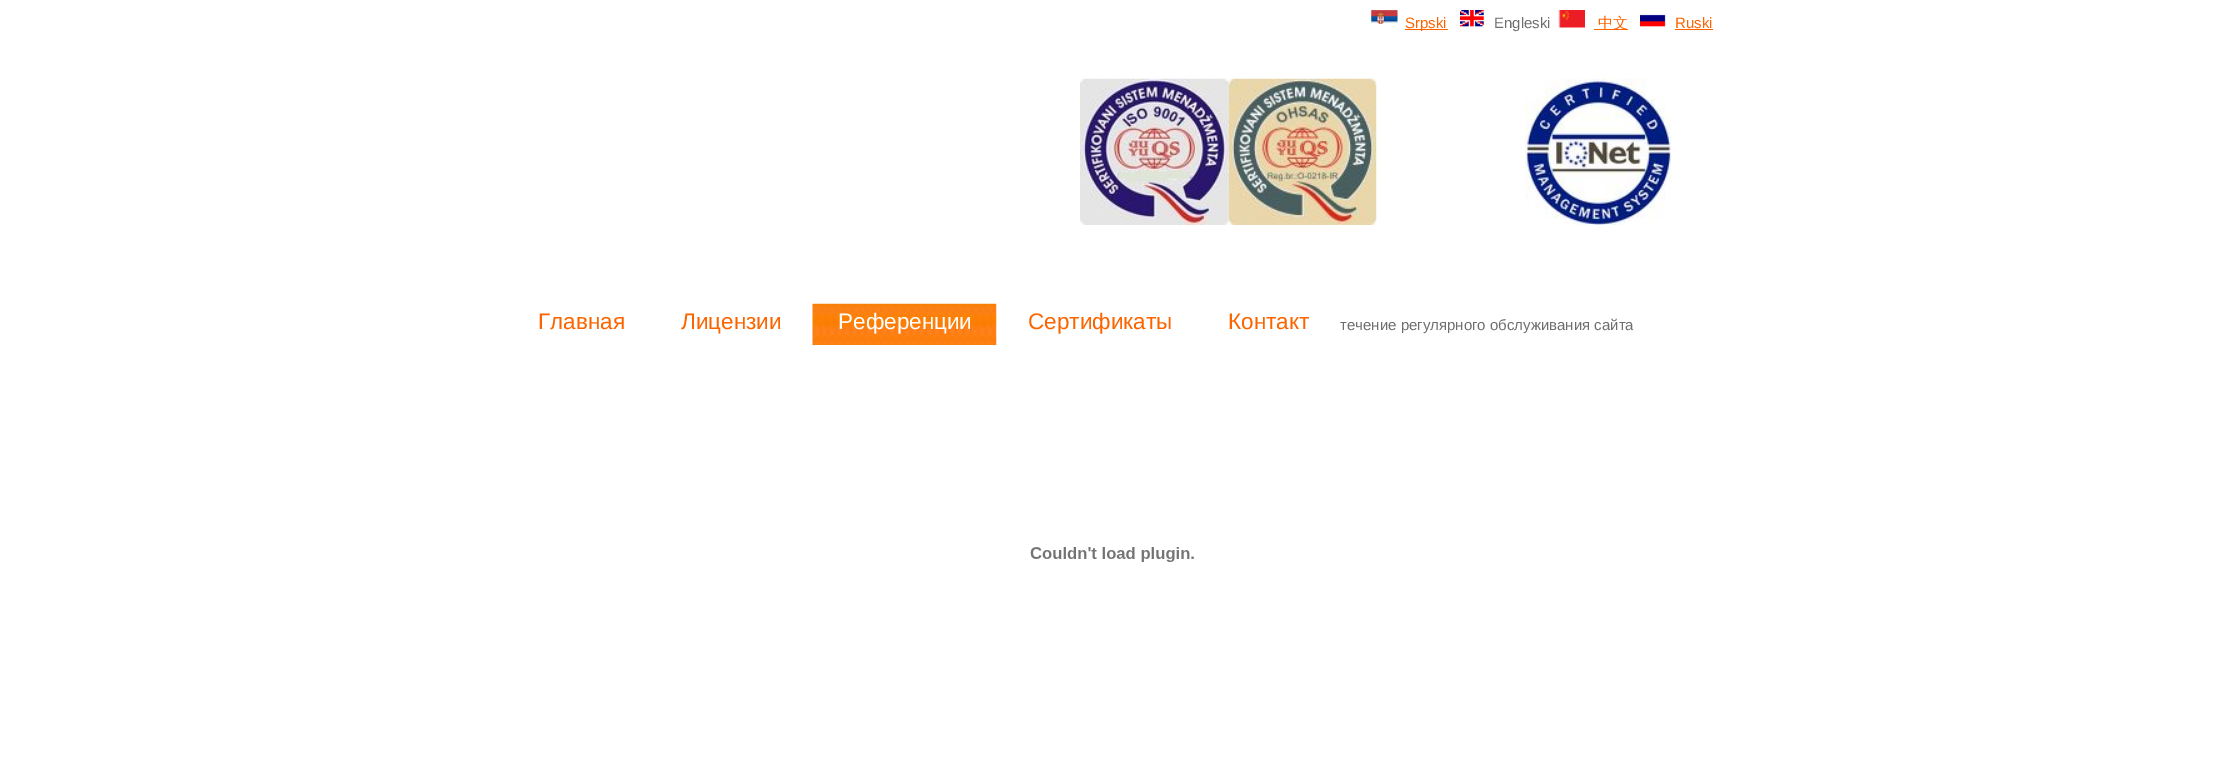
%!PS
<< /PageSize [2225 763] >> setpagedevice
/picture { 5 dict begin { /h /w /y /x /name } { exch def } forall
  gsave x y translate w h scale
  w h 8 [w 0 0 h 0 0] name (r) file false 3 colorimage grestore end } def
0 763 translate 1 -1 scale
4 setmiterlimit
1 setgray
0 0 2225 763 rectfill
(img1.rgb) 1371 10 27 14 picture
0.988 0.392 0 setrgbcolor
1405 29 43 1 rectfill
/LiberationSans-Regular [15 0 0 -15 0 0] selectfont
1405 28 moveto (Srpski) show
(img2.rgb) 1460 10 24 17 picture
0.431 setgray
1494 28 moveto (Engleski) show
(img3.rgb) 1558 10 27 18 picture
0.988 0.392 0 setrgbcolor
1594 29 34 1 rectfill
/WenQuanYiZenHei-Medium [15 0 0 -15 0 0] selectfont
1598 28 moveto (中文) show
(img4.rgb) 1640 14 26 13 picture
/LiberationSans-Regular [15 0 0 -15 0 0] selectfont
1675 28 moveto (Ruski) show
1675 29 38 1 rectfill
(img5.rgb) 1080 78 149 147 picture
(img6.rgb) 1228 78 149 147 picture
(img7.rgb) 1525 78 147 147 picture
/LiberationSans-Regular [22.5 0 0 -22.5 0 0] selectfont
538 329 moveto (Главная) show
681 329 moveto (Лицензии) show
(img8.rgb) 812 303 185 42 picture
1 setgray
838 329 moveto (Референции) show
0.988 0.392 0 setrgbcolor
1028 329 moveto (Сертификаты) show
1228 329 moveto (Контакт) show
/LiberationSans-Regular [15 0 0 -15 0 0] selectfont
0.431 setgray
1340 330 moveto (течение регулярного обслуживания сайта) show
(img9.rgb) 1030 547 164 15 picture
showpage
